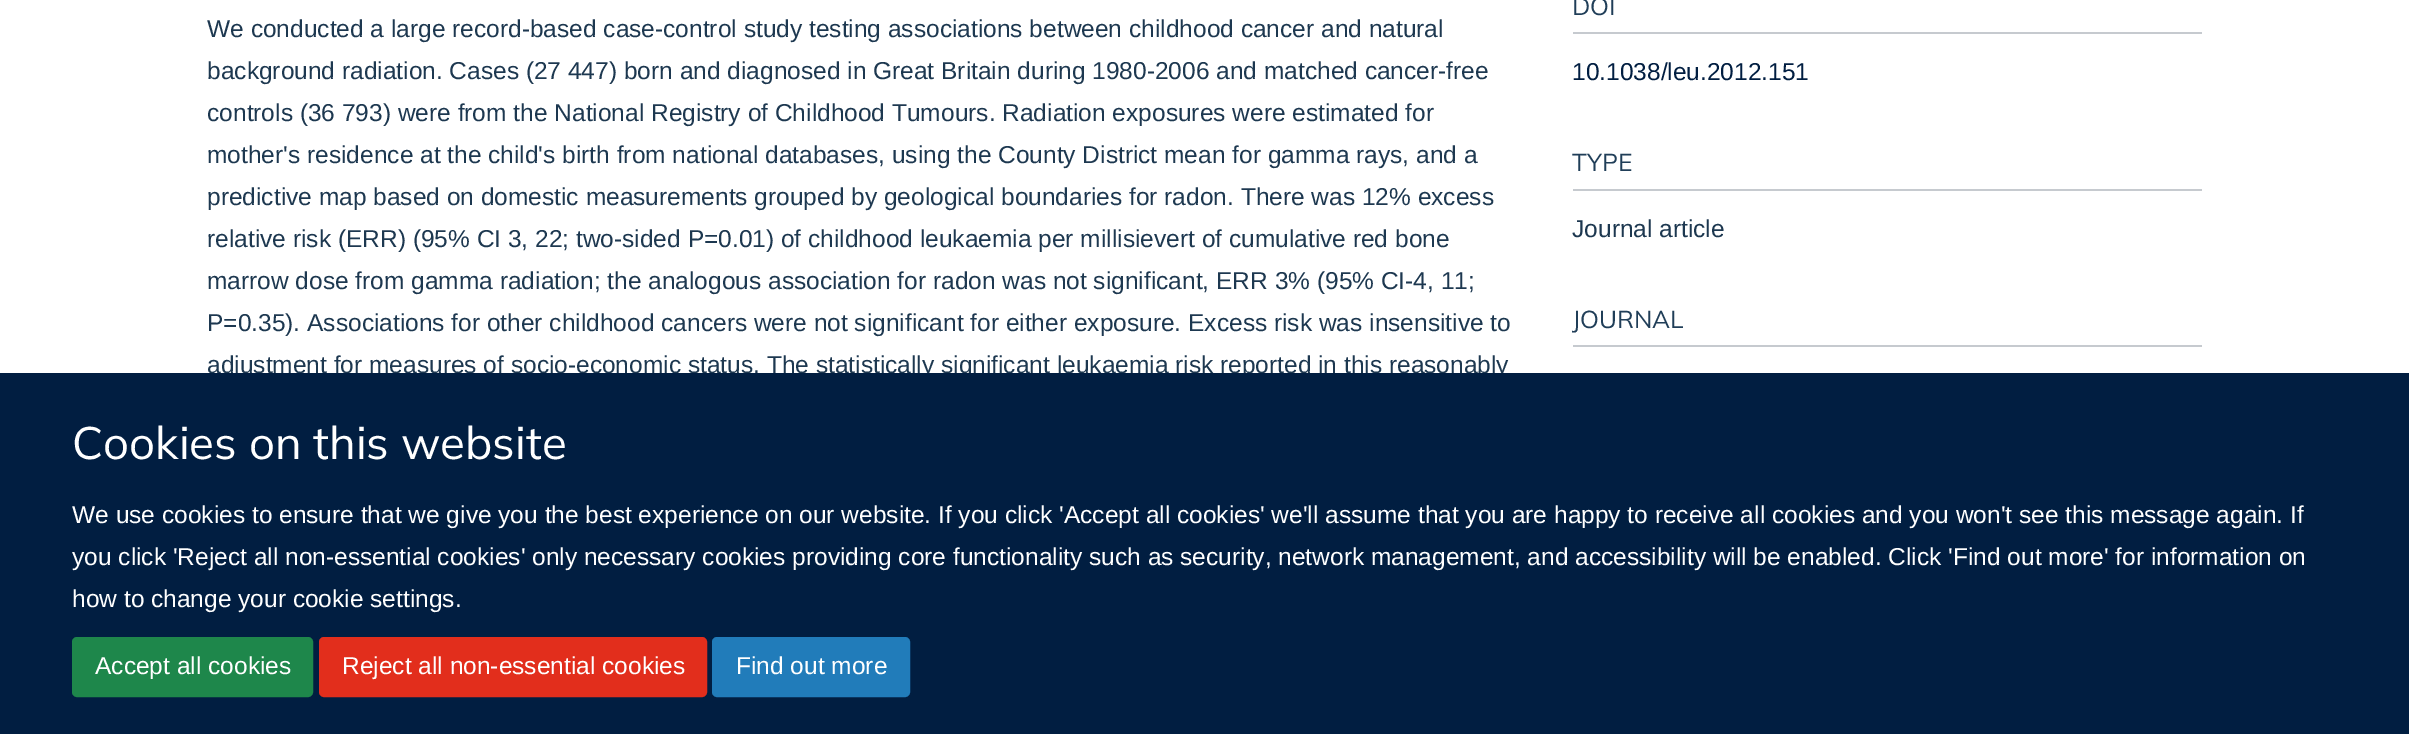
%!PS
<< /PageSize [2409 734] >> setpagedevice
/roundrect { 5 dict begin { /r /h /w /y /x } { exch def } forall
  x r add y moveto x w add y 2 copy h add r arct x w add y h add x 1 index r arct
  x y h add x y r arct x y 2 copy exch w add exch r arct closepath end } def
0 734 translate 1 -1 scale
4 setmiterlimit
1 setgray
0 0 2409 734 rectfill
/LiberationSans-Regular [24.5 0 0 -24.5 0 0] selectfont
0.114 0.22 0.314 setrgbcolor
207 37 moveto (We conducted a large record-based case-control study testing associations between childhood cancer and natural) show
207 79 moveto (background radiation. Cases \(27 447\) born and diagnosed in Great Britain during 1980-2006 and matched cancer-free) show
207 121 moveto (controls \(36 793\) were from the National Registry of Childhood Tumours. Radiation exposures were estimated for) show
207 163 moveto (mother's residence at the child's birth from national databases, using the County District mean for gamma rays, and a) show
207 205 moveto (predictive map based on domestic measurements grouped by geological boundaries for radon. There was 12% excess) show
207 247 moveto (relative risk \(ERR\) \(95% CI 3, 22; two-sided P=0.01\) of childhood leukaemia per millisievert of cumulative red bone) show
207 289 moveto (marrow dose from gamma radiation; the analogous association for radon was not significant, ERR 3% \(95% CI-4, 11;) show
207 331 moveto (P=0.35\). Associations for other childhood cancers were not significant for either exposure. Excess risk was insensitive to) show
207 373 moveto (adjustment for measures of socio-economic status. The statistically significant leukaemia risk reported in this reasonably) show
0.776 0.792 0.812 setrgbcolor
1573 32 629 2 rectfill
/Mulish-Regular [24.5 0 0 -24.5 0 0] selectfont
0.125 0.243 0.345 setrgbcolor
1572 15 moveto (DOI) show
/LiberationSans-Regular [24.5 0 0 -24.5 0 0] selectfont
0.004 0.118 0.255 setrgbcolor
1572 80 moveto (10.1038/leu.2012.151) show
0.776 0.792 0.812 setrgbcolor
1573 189 629 2 rectfill
/Mulish-Regular [24.5 0 0 -24.5 0 0] selectfont
0.125 0.243 0.345 setrgbcolor
1572 171 moveto (TYPE) show
/LiberationSans-Regular [24.5 0 0 -24.5 0 0] selectfont
0.114 0.22 0.314 setrgbcolor
1572 237 moveto (Journal article) show
0.776 0.792 0.812 setrgbcolor
1573 345 629 2 rectfill
/Mulish-Regular [24.5 0 0 -24.5 0 0] selectfont
0.125 0.243 0.345 setrgbcolor
1572 328 moveto (JOURNAL) show
0.004 0.118 0.255 setrgbcolor
0 373 2409 361 rectfill
/Mulish-Regular [45.5 0 0 -45.5 0 0] selectfont
1 setgray
72 459 moveto (Cookies on this website) show
/LiberationSans-Regular [24.5 0 0 -24.5 0 0] selectfont
72 523 moveto (We use cookies to ensure that we give you the best experience on our website. If you click 'Accept all cookies' we'll assume that you are happy to receive all cookies and you won't see this message again. If) show
72 565 moveto (you click 'Reject all non-essential cookies' only necessary cookies providing core functionality such as security, network management, and accessibility will be enabled. Click 'Find out more' for information on) show
72 607 moveto (how to change your cookie settings.) show
0.118 0.529 0.294 setrgbcolor
73 638 239 58 4 roundrect gsave fill grestore
2 setlinewidth
stroke
1 setgray
95 674 moveto (Accept all cookies) show
0.886 0.18 0.11 setrgbcolor
320 638 386 58 4 roundrect gsave fill grestore
stroke
1 setgray
342 674 moveto (Reject all non-essential cookies) show
0.129 0.486 0.729 setrgbcolor
713 638 196 58 4 roundrect gsave fill grestore
stroke
1 setgray
736 674 moveto (Find out more) show
showpage
